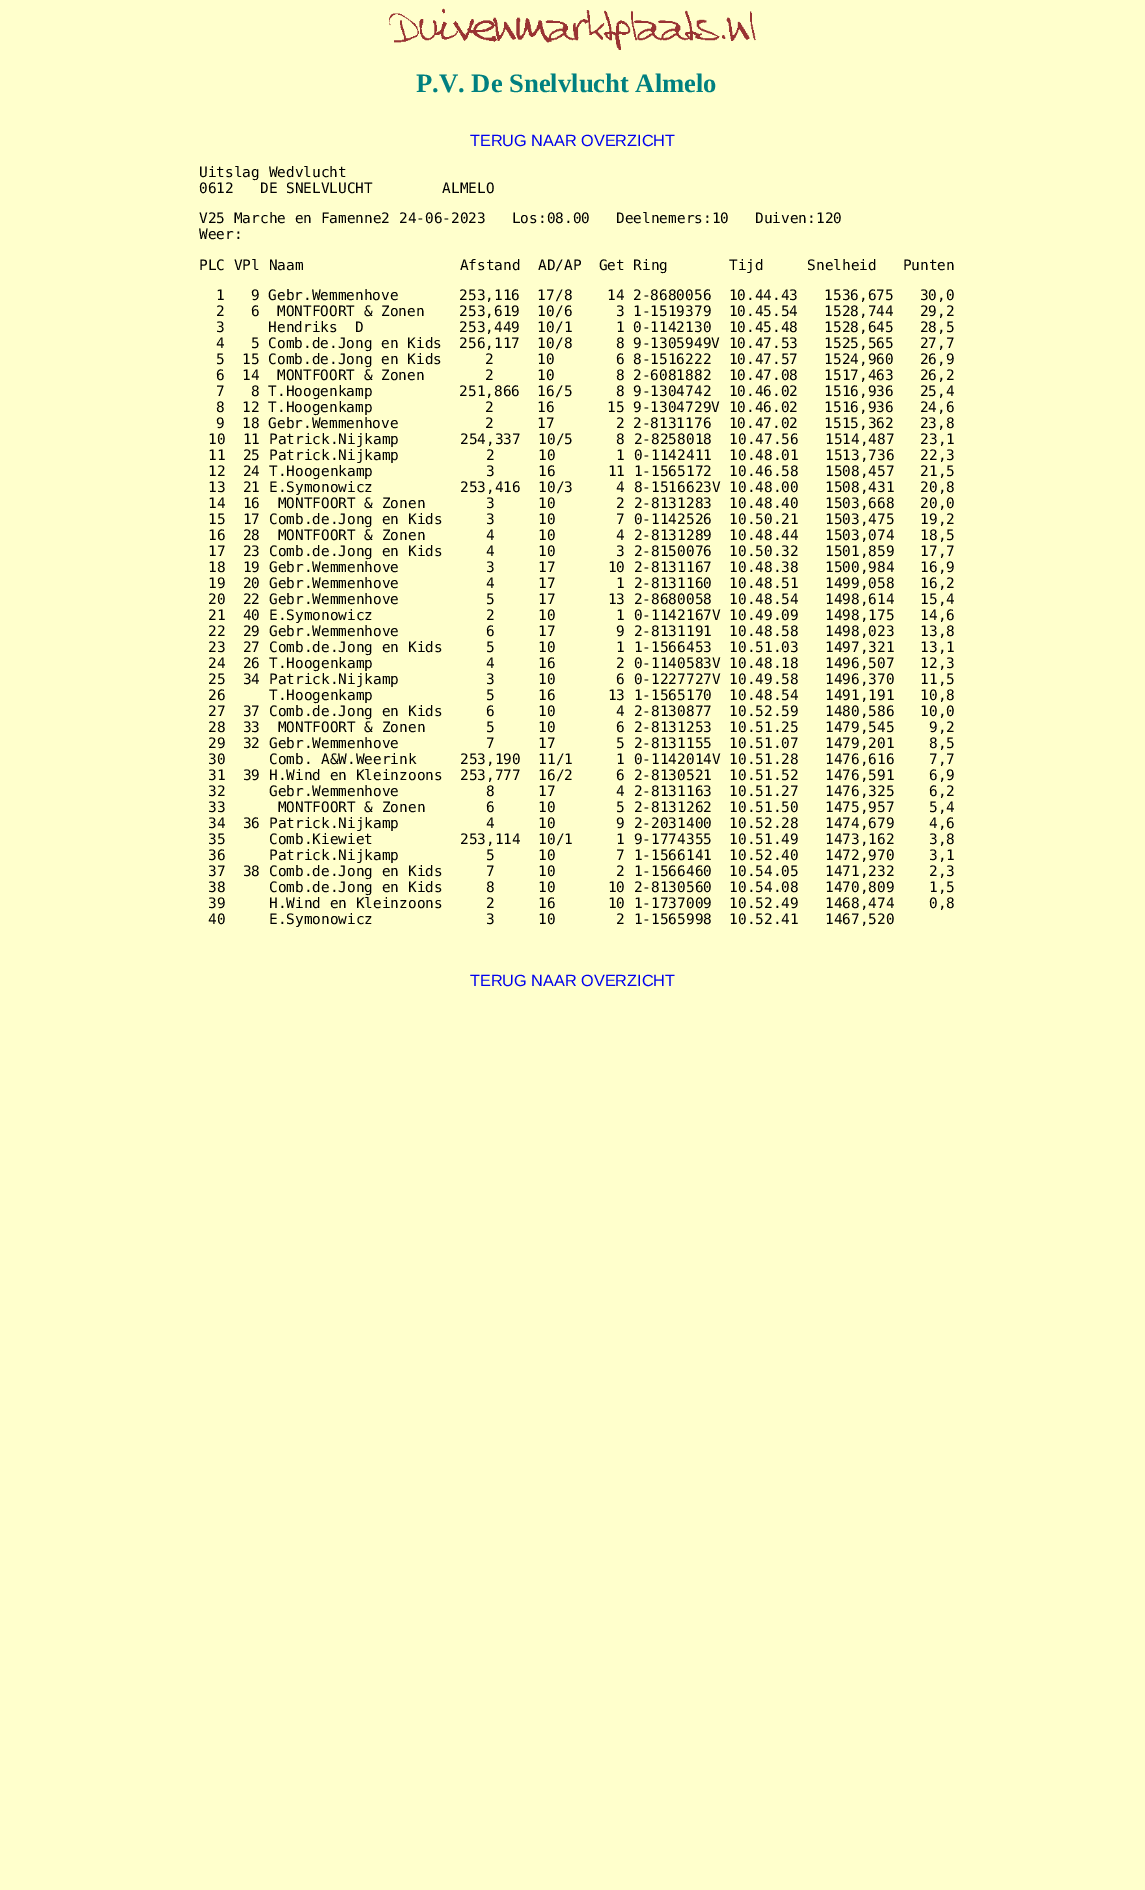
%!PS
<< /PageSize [1145 1890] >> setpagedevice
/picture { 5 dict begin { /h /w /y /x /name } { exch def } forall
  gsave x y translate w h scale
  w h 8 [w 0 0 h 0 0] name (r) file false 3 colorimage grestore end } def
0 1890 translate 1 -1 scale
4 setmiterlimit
1 1 0.8 setrgbcolor
0 0 1145 1890 rectfill
(img1.rgb) 389 8 367 42 picture
/LiberationSerif-Bold [26.6 0 0 -26.6 0 0] selectfont
0 0.502 0.502 setrgbcolor
416 92 moveto (P.V. De Snelvlucht Almelo) show
/LiberationSans-Regular [16.25 0 0 -16.25 0 0] selectfont
0 0 0.933 setrgbcolor
470 146 moveto (TERUG NAAR OVERZICHT) show
/DejaVuSansMono-Regular [14.43 0 0 -14.43 0 0] selectfont
0 setgray
199 177 moveto (Uitslag Wedvlucht) show
199 193 moveto (0612   DE SNELVLUCHT        ALMELO) show
199 223 moveto (V25 Marche en Famenne2 24-06-2023   Los:08.00   Deelnemers:10   Duiven:120) show
199 239 moveto (Weer:) show
199 270 moveto (PLC VPl Naam                  Afstand  AD/AP  Get Ring       Tijd     Snelheid   Punten) show
216 300 moveto (1   9 Gebr.Wemmenhove       253,116  17/8    14 2-8680056  10.44.43   1536,675   30,0) show
216 316 moveto (2   6  MONTFOORT & Zonen    253,619  10/6     3 1-1519379  10.45.54   1528,744   29,2) show
216 332 moveto (3     Hendriks  D           253,449  10/1     1 0-1142130  10.45.48   1528,645   28,5) show
216 348 moveto (4   5 Comb.de.Jong en Kids  256,117  10/8     8 9-1305949V 10.47.53   1525,565   27,7) show
216 364 moveto (5  15 Comb.de.Jong en Kids     2     10       6 8-1516222  10.47.57   1524,960   26,9) show
216 380 moveto (6  14  MONTFOORT & Zonen       2     10       8 2-6081882  10.47.08   1517,463   26,2) show
216 396 moveto (7   8 T.Hoogenkamp          251,866  16/5     8 9-1304742  10.46.02   1516,936   25,4) show
216 412 moveto (8  12 T.Hoogenkamp             2     16      15 9-1304729V 10.46.02   1516,936   24,6) show
216 428 moveto (9  18 Gebr.Wemmenhove          2     17       2 2-8131176  10.47.02   1515,362   23,8) show
208 444 moveto (10  11 Patrick.Nijkamp       254,337  10/5     8 2-8258018  10.47.56   1514,487   23,1) show
208 460 moveto (11  25 Patrick.Nijkamp          2     10       1 0-1142411  10.48.01   1513,736   22,3) show
208 476 moveto (12  24 T.Hoogenkamp             3     16      11 1-1565172  10.46.58   1508,457   21,5) show
208 492 moveto (13  21 E.Symonowicz          253,416  10/3     4 8-1516623V 10.48.00   1508,431   20,8) show
208 508 moveto (14  16  MONTFOORT & Zonen       3     10       2 2-8131283  10.48.40   1503,668   20,0) show
208 524 moveto (15  17 Comb.de.Jong en Kids     3     10       7 0-1142526  10.50.21   1503,475   19,2) show
208 540 moveto (16  28  MONTFOORT & Zonen       4     10       4 2-8131289  10.48.44   1503,074   18,5) show
208 556 moveto (17  23 Comb.de.Jong en Kids     4     10       3 2-8150076  10.50.32   1501,859   17,7) show
208 572 moveto (18  19 Gebr.Wemmenhove          3     17      10 2-8131167  10.48.38   1500,984   16,9) show
208 588 moveto (19  20 Gebr.Wemmenhove          4     17       1 2-8131160  10.48.51   1499,058   16,2) show
208 604 moveto (20  22 Gebr.Wemmenhove          5     17      13 2-8680058  10.48.54   1498,614   15,4) show
208 620 moveto (21  40 E.Symonowicz             2     10       1 0-1142167V 10.49.09   1498,175   14,6) show
208 636 moveto (22  29 Gebr.Wemmenhove          6     17       9 2-8131191  10.48.58   1498,023   13,8) show
208 652 moveto (23  27 Comb.de.Jong en Kids     5     10       1 1-1566453  10.51.03   1497,321   13,1) show
208 668 moveto (24  26 T.Hoogenkamp             4     16       2 0-1140583V 10.48.18   1496,507   12,3) show
208 684 moveto (25  34 Patrick.Nijkamp          3     10       6 0-1227727V 10.49.58   1496,370   11,5) show
208 700 moveto (26     T.Hoogenkamp             5     16      13 1-1565170  10.48.54   1491,191   10,8) show
208 716 moveto (27  37 Comb.de.Jong en Kids     6     10       4 2-8130877  10.52.59   1480,586   10,0) show
208 732 moveto (28  33  MONTFOORT & Zonen       5     10       6 2-8131253  10.51.25   1479,545    9,2) show
208 748 moveto (29  32 Gebr.Wemmenhove          7     17       5 2-8131155  10.51.07   1479,201    8,5) show
208 764 moveto (30     Comb. A&W.Weerink     253,190  11/1     1 0-1142014V 10.51.28   1476,616    7,7) show
208 780 moveto (31  39 H.Wind en Kleinzoons  253,777  16/2     6 2-8130521  10.51.52   1476,591    6,9) show
208 796 moveto (32     Gebr.Wemmenhove          8     17       4 2-8131163  10.51.27   1476,325    6,2) show
208 812 moveto (33      MONTFOORT & Zonen       6     10       5 2-8131262  10.51.50   1475,957    5,4) show
208 828 moveto (34  36 Patrick.Nijkamp          4     10       9 2-2031400  10.52.28   1474,679    4,6) show
208 844 moveto (35     Comb.Kiewiet          253,114  10/1     1 9-1774355  10.51.49   1473,162    3,8) show
208 860 moveto (36     Patrick.Nijkamp          5     10       7 1-1566141  10.52.40   1472,970    3,1) show
208 876 moveto (37  38 Comb.de.Jong en Kids     7     10       2 1-1566460  10.54.05   1471,232    2,3) show
208 892 moveto (38     Comb.de.Jong en Kids     8     10      10 2-8130560  10.54.08   1470,809    1,5) show
208 908 moveto (39     H.Wind en Kleinzoons     2     16      10 1-1737009  10.52.49   1468,474    0,8) show
208 924 moveto (40     E.Symonowicz             3     10       2 1-1565998  10.52.41   1467,520) show
/LiberationSans-Regular [16.25 0 0 -16.25 0 0] selectfont
0 0 0.933 setrgbcolor
470 986 moveto (TERUG NAAR OVERZICHT) show
showpage
